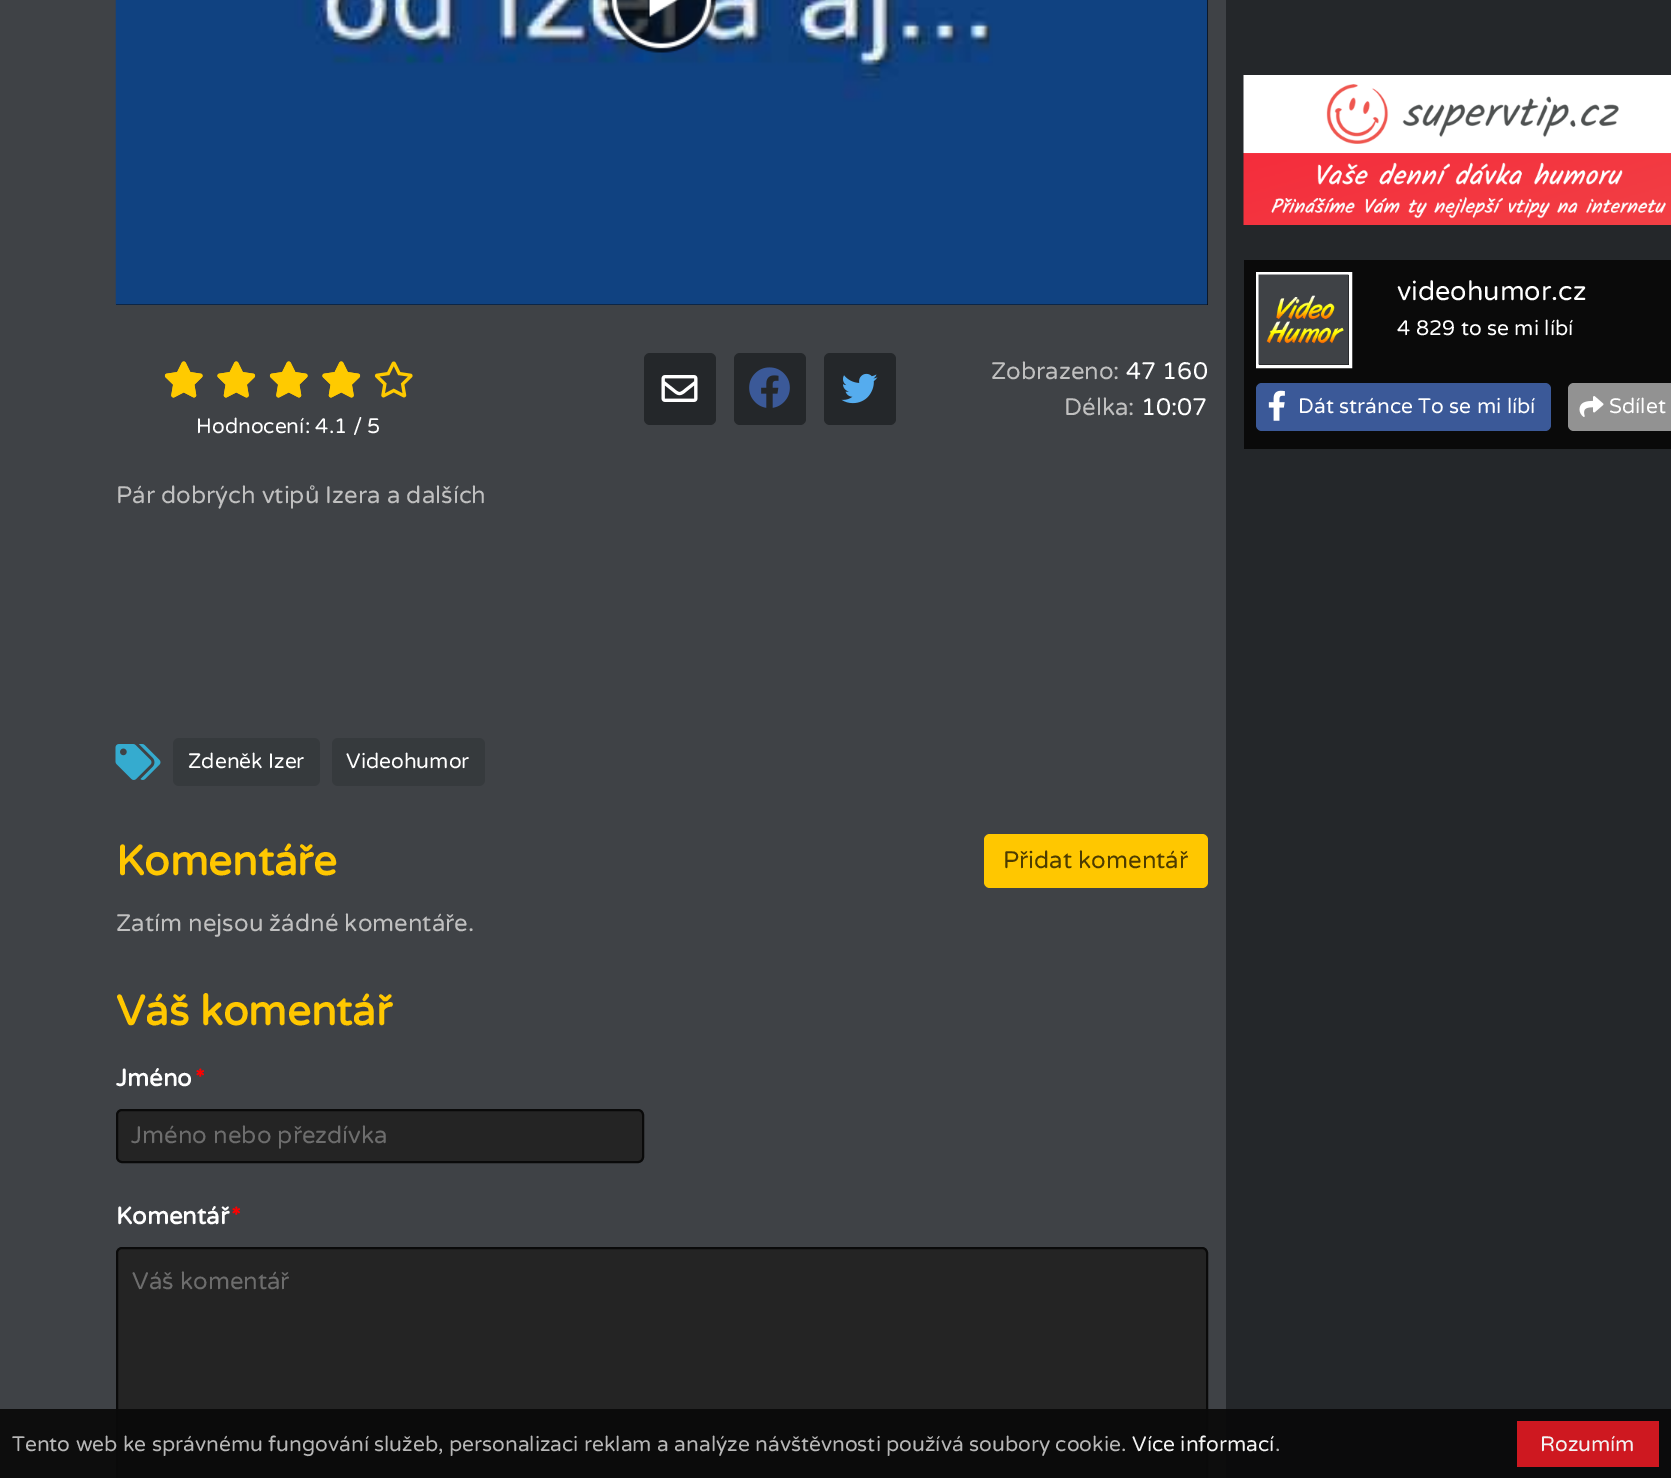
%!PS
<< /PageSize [1671 1478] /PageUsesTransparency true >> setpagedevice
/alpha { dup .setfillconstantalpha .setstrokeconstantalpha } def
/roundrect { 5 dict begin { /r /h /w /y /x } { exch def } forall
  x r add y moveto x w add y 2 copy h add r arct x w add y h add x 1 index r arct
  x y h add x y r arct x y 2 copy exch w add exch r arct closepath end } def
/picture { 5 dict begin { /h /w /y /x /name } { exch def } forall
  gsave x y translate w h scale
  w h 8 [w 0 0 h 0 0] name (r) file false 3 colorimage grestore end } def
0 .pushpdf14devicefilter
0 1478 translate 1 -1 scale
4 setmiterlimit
0.247 0.259 0.275 setrgbcolor
0 0 1671 1478 rectfill
0.141 0.153 0.165 setrgbcolor
1226 0 445 1478 rectfill
(img1.rgb) 1243 75 428 150 picture
0.039 setgray
1244 260 427 189 rectfill
1 setgray
3 setlinewidth
1257.5 273.5 93 93 rectstroke
(img2.rgb) 1258 274 91 91 picture
/VarelaRound-Regular [27 0 0 -27 0 0] selectfont
1397 300 moveto (videohumor.cz) show
/VarelaRound-Regular [21 0 0 -21 0 0] selectfont
1397 335 moveto (4 829 to se mi líbí) show
0.231 0.349 0.596 setrgbcolor
1256 383 295 48 6 roundrect fill
(img3.rgb) 1268 390 17 31 picture
1 setgray
1298 413 moveto (Dát stránce To se mi líbí) show
0.573 setgray
1568 383 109 48 6 roundrect fill
(img4.rgb) 1579 396 25 21 picture
1 setgray
1609 413 moveto (Sdílet) show
0.039 setgray
116 0 1092 305 rectfill
(img5.rgb) 115 0 1093 305 picture
(img6.rgb) 607 0 109 53 picture
0.141 0.153 0.165 setrgbcolor
644 353 72 72 6 roundrect fill
(img7.rgb) 661 375 37 27 picture
734 353 72 72 6 roundrect fill
(img8.rgb) 749 367 41 41 picture
824 353 72 72 6 roundrect fill
(img9.rgb) 841 373 37 31 picture
/VarelaRound-Regular [24 0 0 -24 0 0] selectfont
0.753 setgray
991 379 moveto (Zobrazeno:) show
1 setgray
1126 379 moveto (47 160) show
0.753 setgray
1064 415 moveto (Délka:) show
1 setgray
1141 415 moveto (10:07) show
(img10.rgb) 164 361 39 37 picture
(img11.rgb) 164 361 39 37 picture
(img13.rgb) 217 361 39 37 picture
(img12.rgb) 217 361 39 37 picture
(img10.rgb) 269 361 39 37 picture
(img11.rgb) 269 361 39 37 picture
(img13.rgb) 322 361 39 37 picture
(img12.rgb) 322 361 39 37 picture
(img10.rgb) 374 361 39 37 picture
/VarelaRound-Regular [21 0 0 -21 0 0] selectfont
196 433 moveto (Hodnocení: 4.1 / 5) show
/VarelaRound-Regular [24 0 0 -24 0 0] selectfont
0.753 setgray
116 503 moveto (Pár dobrých vtipů Izera a dalších) show
(img14.rgb) 115 744 46 36 picture
0.212 0.227 0.239 setrgbcolor
173 738 147 48 6 roundrect fill
/VarelaRound-Regular [21 0 0 -21 0 0] selectfont
1 setgray
188 768 moveto (Zdeněk Izer) show
0.212 0.227 0.239 setrgbcolor
332 738 153 48 6 roundrect fill
1 setgray
346 768 moveto (Videohumor) show
/VarelaRound-Bold [42 0 0 -42 0 0] selectfont
1 0.78 0 setrgbcolor
116 875 moveto (Komentáře) show
984 834 224 54 6 roundrect fill
/VarelaRound-Regular [24 0 0 -24 0 0] selectfont
0.302 0.235 0 setrgbcolor
1003 868 moveto (Přidat komentář) show
0.753 setgray
116 931 moveto (Zatím nejsou žádné komentáře.) show
/VarelaRound-Bold [42 0 0 -42 0 0] selectfont
1 0.78 0 setrgbcolor
116 1025 moveto (Váš komentář) show
/VarelaRound-Bold [24 0 0 -24 0 0] selectfont
1 setgray
116 1086 moveto (Jméno) show
1 0 0 setrgbcolor
195 1086 moveto (*) show
0.141 setgray
117 1110 526 52 5 roundrect gsave fill grestore
0.039 setgray
2 setlinewidth
stroke
/VarelaRound-Regular [24 0 0 -24 0 0] selectfont
0.427 setgray
131 1143 moveto (Jméno nebo přezdívka) show
/VarelaRound-Bold [24 0 0 -24 0 0] selectfont
1 setgray
116 1224 moveto (Komentář) show
1 0 0 setrgbcolor
231 1224 moveto (*) show
0.141 setgray
117 1248 1090 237 5 roundrect gsave fill grestore
0.039 setgray
stroke
/VarelaRound-Regular [24 0 0 -24 0 0] selectfont
0.427 setgray
132 1289 moveto (Váš komentář) show
0.95 alpha
0.039 setgray
0 1409 1671 69 rectfill
/VarelaRound-Regular [21 0 0 -21 0 0] selectfont
1 alpha
0.718 setgray
12 1451 moveto (Tento web ke správnému fungování služeb, personalizaci reklam a analýze návštěvnosti používá soubory cookie.) show
0.953 setgray
1132 1451 moveto (Více informací) show
0.718 setgray
1275 1451 moveto (.) show
0.808 0.094 0.125 setrgbcolor
1517 1421 142 46 rectfill
0.953 setgray
1540 1451 moveto (Rozumím) show
.poppdf14devicefilter showpage
